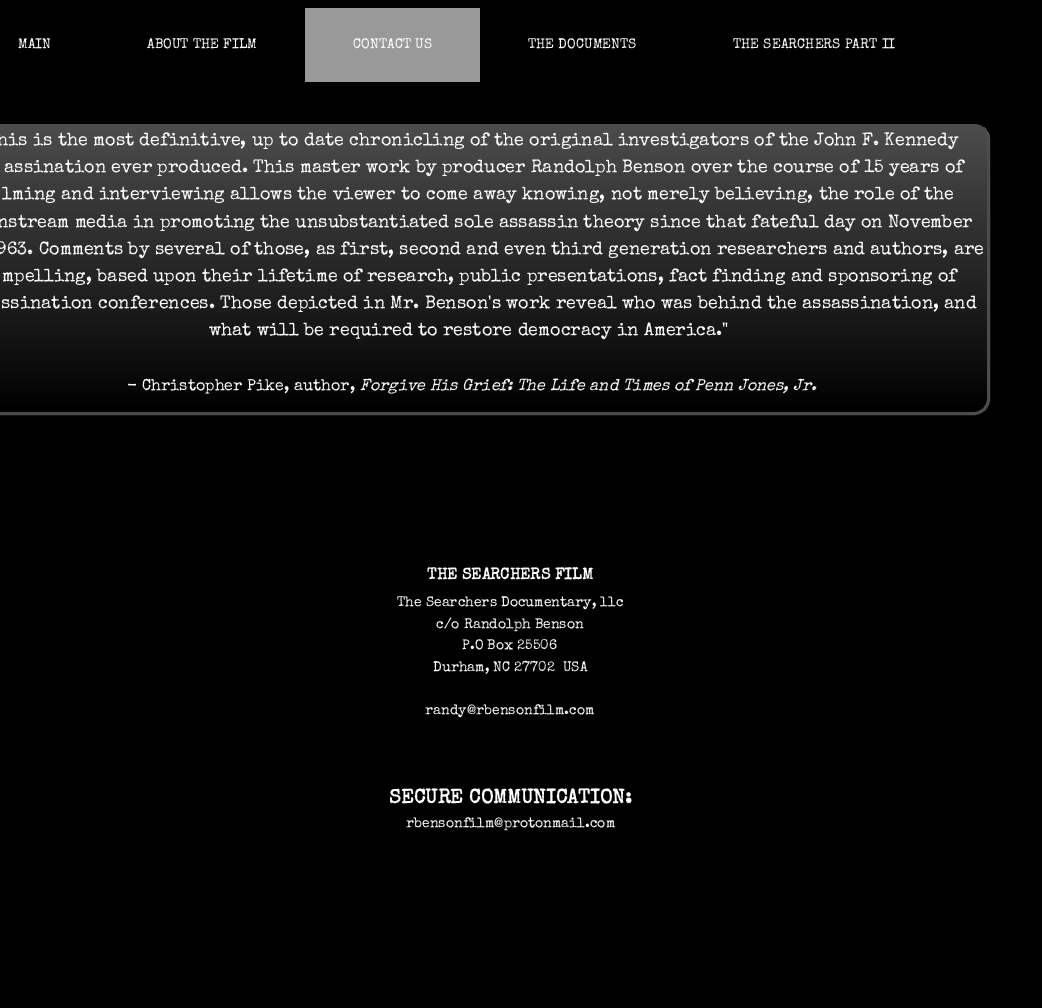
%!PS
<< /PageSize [1042 1008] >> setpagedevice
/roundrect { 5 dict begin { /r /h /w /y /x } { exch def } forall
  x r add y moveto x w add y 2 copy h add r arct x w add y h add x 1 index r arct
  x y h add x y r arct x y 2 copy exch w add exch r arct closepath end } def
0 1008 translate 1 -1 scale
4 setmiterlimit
0 setgray
0 0 1042 1008 rectfill
/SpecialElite-Regular [14 0 0 -14 0 0] selectfont
1 setgray
18 48 moveto (MAIN) show
147 48 moveto (ABOUT THE FILM) show
0.6 setgray
305 8 175 74 rectfill
1 setgray
353 48 moveto (CONTACT US) show
528 48 moveto (THE DOCUMENTS) show
733 48 moveto (THE SEARCHERS PART II) show
gsave
-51 124 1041 291 16 roundrect clip newpath
gsave newpath 0 127 moveto 990 127 lineto 990 412 lineto 0 412 lineto closepath clip newpath
<< /ShadingType 2 /ColorSpace /DeviceRGB /Coords [470 127 470 412] /Extend [true true] /Function << /FunctionType 2 /Domain [0 1] /C0 [0.298 0.298 0.298] /C1 [0 0 0] /N 1 >> >> shfill grestore
grestore
0.298 setgray
3 setlinewidth
-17.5 125.5 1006 288 14.5 roundrect stroke
/SpecialElite-Regular [18 0 0 -18 0 0] selectfont
1 setgray
-3 145 moveto (his is the most definitive, up to date chronicling of the original investigators of the John F. Kennedy) show
4 172 moveto (assination ever produced. This master work by producer Randolph Benson over the course of 15 years of) show
2 199 moveto (lming and interviewing allows the viewer to come away knowing, not merely believing, the role of the) show
-3 227 moveto (nstream media in promoting the unsubstantiated sole assassin theory since that fateful day on November) show
-4 254 moveto (963. Comments by several of those, as first, second and even third generation researchers and authors, are) show
2 281 moveto (mpelling, based upon their lifetime of research, public presentations, fact finding and sponsoring of) show
1 308 moveto (ssination conferences. Those depicted in Mr. Benson's work reveal who was behind the assassination, and) show
209 335 moveto (what will be required to restore democracy in America.") show
/SpecialElite-Regular [16 0 0 -16 0 0] selectfont
127 390 moveto (- Christopher Pike, author,) show
/SpecialElite-Italic [16 0 0 -16 0 0] selectfont
360 390 moveto (Forgive His Grief: The Life and Times of Penn Jones, Jr.) show
/SpecialElite-Bold [16 0 0 -16 0 0] selectfont
427 579 moveto (THE SEARCHERS FILM) show
/SpecialElite-Regular [14 0 0 -14 0 0] selectfont
397 606 moveto (The Searchers Documentary, llc) show
436 628 moveto (c/o Randolph Benson) show
462 649 moveto (P.O Box 25506) show
433 671 moveto (Durham, NC 27702  USA) show
425 714 moveto (randy@rbensonfilm.com) show
/SpecialElite-Bold [20 0 0 -20 0 0] selectfont
389 803 moveto (SECURE COMMUNICATION:) show
/SpecialElite-Regular [14 0 0 -14 0 0] selectfont
406 827 moveto (rbensonfilm@protonmail.com) show
showpage
